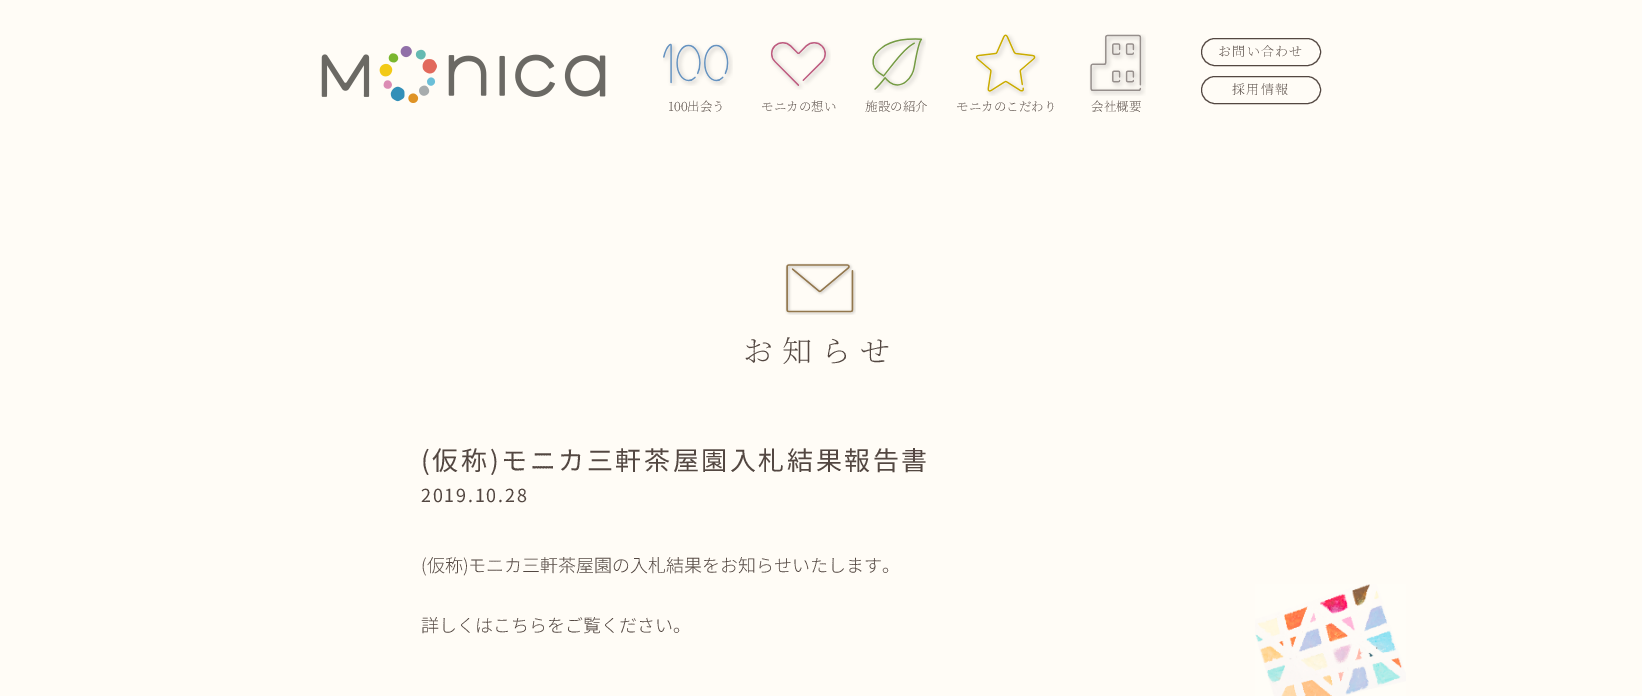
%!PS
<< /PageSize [1642 696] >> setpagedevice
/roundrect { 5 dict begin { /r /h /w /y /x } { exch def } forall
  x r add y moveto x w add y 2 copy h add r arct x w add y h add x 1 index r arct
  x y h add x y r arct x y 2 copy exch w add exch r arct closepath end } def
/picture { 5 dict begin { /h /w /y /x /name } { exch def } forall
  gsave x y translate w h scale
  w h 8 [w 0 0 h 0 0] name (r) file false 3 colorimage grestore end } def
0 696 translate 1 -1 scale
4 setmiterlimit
1 0.988 0.965 setrgbcolor
0 0 1642 696 rectfill
(img1.rgb) 321 46 285 57 picture
0.325 0.278 0.255 setrgbcolor
1201.5 38.5 119 27 13.5 roundrect stroke
/NotoSerifJP-ExtraLight [13 0 0 -13 0 0] selectfont
1218 56 moveto 1.25 0 (お問い合わせ) ashow
1201.5 76.5 119 27 13.5 roundrect stroke
1232 94 moveto 1.25 0 (採用情報) ashow
(img2.rgb) 663 43 70 43 picture
/NotoSerifJP-ExtraLight [12.5 0 0 -12.5 0 0] selectfont
668 111 moveto (100出会う) show
(img3.rgb) 770 41 61 49 picture
761 111 moveto (モニカの想い) show
(img4.rgb) 872 37 54 56 picture
865 111 moveto (施設の紹介) show
(img5.rgb) 975 34 65 62 picture
956 111 moveto (モニカのこだわり) show
(img6.rgb) 1089 34 57 62 picture
1091 111 moveto (会社概要) show
(img7.rgb) 785 263 71 52 picture
/NotoSerifJP-ExtraLight [30 0 0 -30 0 0] selectfont
743 362 moveto 9 0 (お知らせ) ashow
/NotoSansJP-Regular [26 0 0 -26 0 0] selectfont
421 470 moveto 2.6 0 (\(仮称\)モニカ三軒茶屋園入札結果報告書) ashow
/NotoSansJP-Regular [18 0 0 -18 0 0] selectfont
421 502 moveto 1.75 0 (2019.10.28) ashow
/NotoSansJP-Light [18 0 0 -18 0 0] selectfont
421 572 moveto (\(仮称\)モニカ三軒茶屋園の入札結果をお知らせいたします。) show
421 632 moveto (詳しくはこちらをご覧ください。) show
(img8.rgb) 1255 584 151 112 picture
showpage
